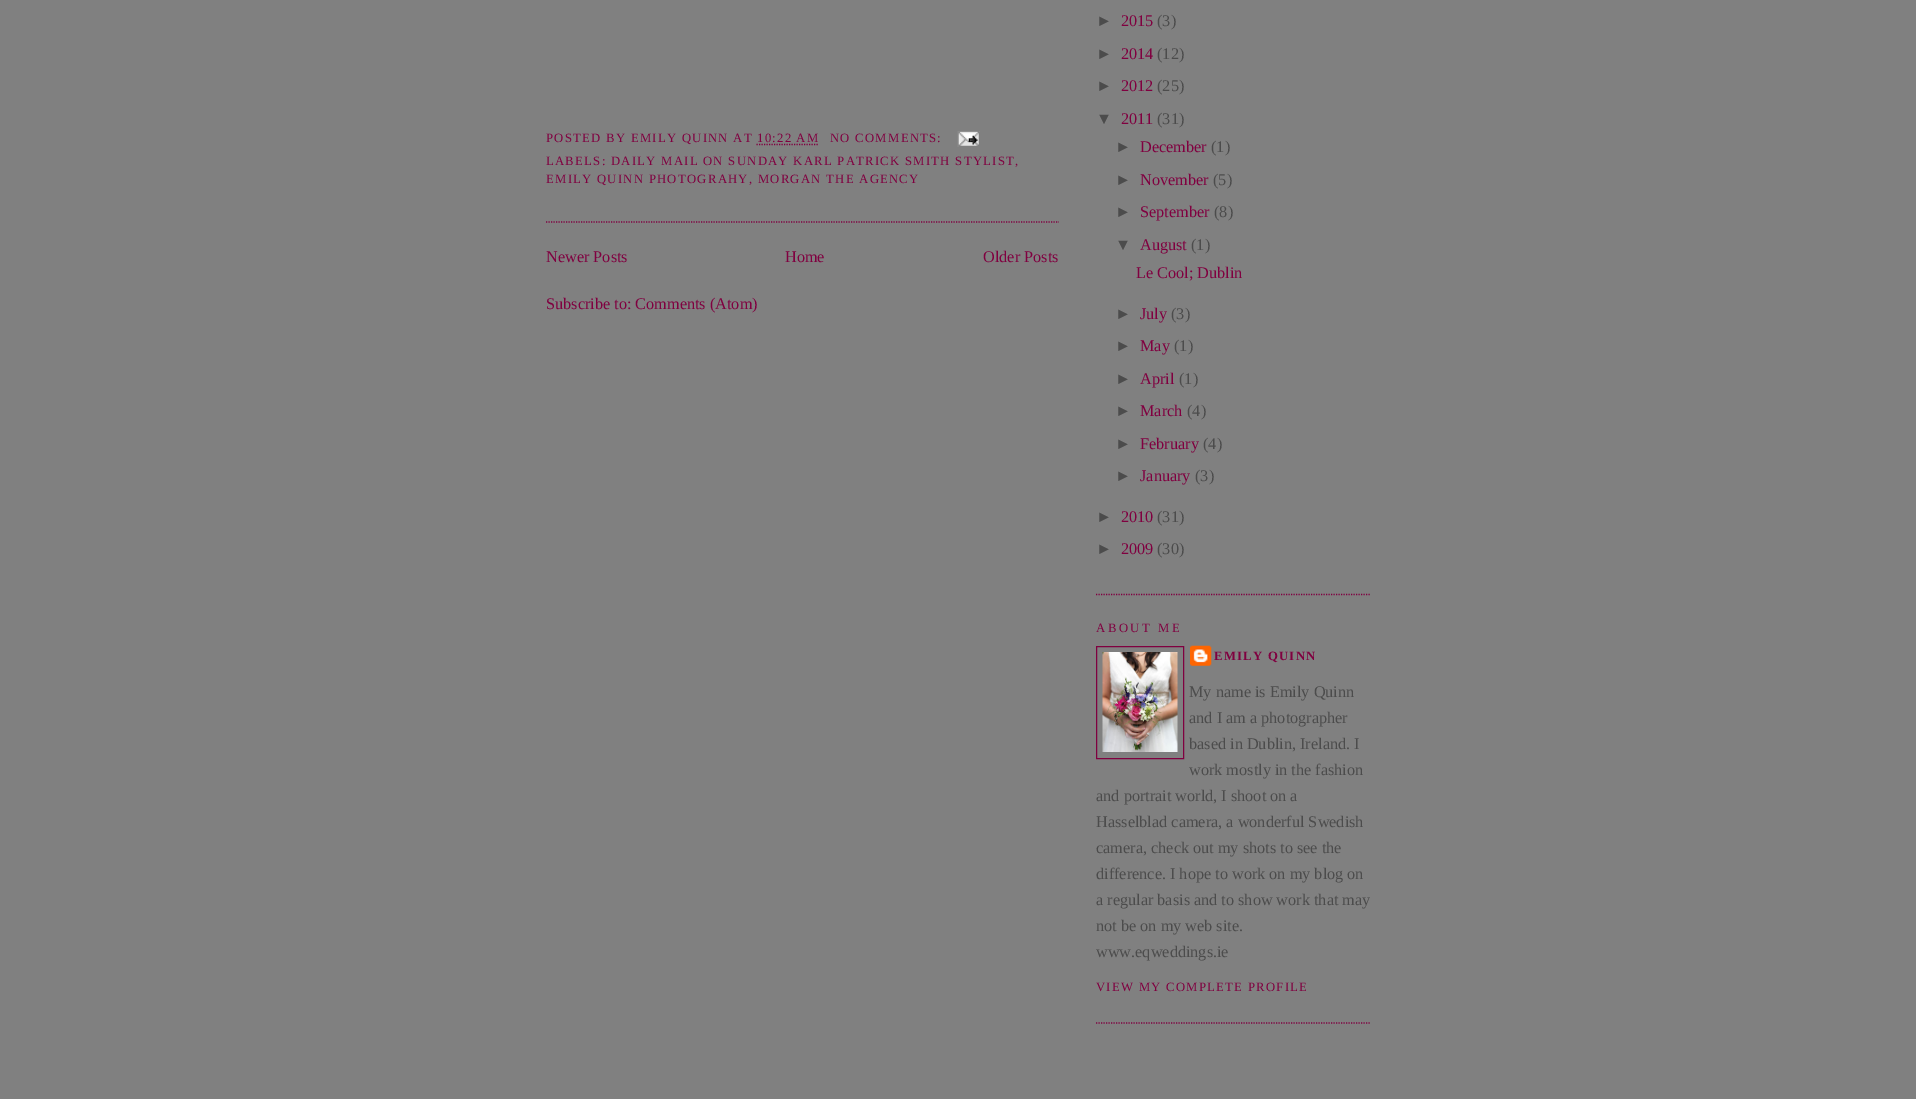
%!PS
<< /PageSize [1916 1099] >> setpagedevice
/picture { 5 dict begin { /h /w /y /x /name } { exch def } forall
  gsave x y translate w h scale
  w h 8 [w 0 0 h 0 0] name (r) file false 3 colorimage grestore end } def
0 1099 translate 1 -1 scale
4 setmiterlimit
0.502 setgray
0 0 1916 1099 rectfill
0.502 0 0.251 setrgbcolor
1.2 setlinewidth
[1.25 1.25] 0 setdash
newpath 546 222 moveto 1059 222 lineto stroke
/LiberationSerif-Regular [12.7 0 0 -12.7 0 0] selectfont
546 142 moveto 1.27 0 (POSTED BY EMILY QUINN AT 10:22 AM) ashow
830 142 moveto 1.27 0 (NO COMMENTS:) ashow
(img1.rgb) 957 131 23 16 picture
newpath 756.5 144.5 moveto 818 144.5 lineto stroke
546 165 moveto 1.27 0 (LABELS: DAILY MAIL ON SUNDAY KARL PATRICK SMITH STYLIST,) ashow
546 183 moveto 1.27 0 (EMILY QUINN PHOTOGRAHY, MORGAN THE AGENCY) ashow
/LiberationSerif-Regular [16.25 0 0 -16.25 0 0] selectfont
546 262 moveto (Newer Posts) show
785 262 moveto (Home) show
983 262 moveto (Older Posts) show
546 309 moveto (Subscribe to: Comments \(Atom\)) show
newpath 1096 594.5 moveto 1371 594.5 lineto stroke
/LiberationSans-Regular [16.25 0 0 -16.25 0 0] selectfont
0.298 setgray
1096 26 moveto (►) show
/LiberationSerif-Regular [16.25 0 0 -16.25 0 0] selectfont
0.502 0 0.251 setrgbcolor
1121 26 moveto (2015) show
0.298 setgray
1157 26 moveto (\(3\)) show
/LiberationSans-Regular [16.25 0 0 -16.25 0 0] selectfont
1096 59 moveto (►) show
/LiberationSerif-Regular [16.25 0 0 -16.25 0 0] selectfont
0.502 0 0.251 setrgbcolor
1121 59 moveto (2014) show
0.298 setgray
1157 59 moveto (\(12\)) show
/LiberationSans-Regular [16.25 0 0 -16.25 0 0] selectfont
1096 91 moveto (►) show
/LiberationSerif-Regular [16.25 0 0 -16.25 0 0] selectfont
0.502 0 0.251 setrgbcolor
1121 91 moveto (2012) show
0.298 setgray
1157 91 moveto (\(25\)) show
/LiberationSans-Regular [16.25 0 0 -16.25 0 0] selectfont
1096 124 moveto (▼) show
/LiberationSerif-Regular [16.25 0 0 -16.25 0 0] selectfont
0.502 0 0.251 setrgbcolor
1121 124 moveto (2011) show
0.298 setgray
1157 124 moveto (\(31\)) show
/LiberationSans-Regular [16.25 0 0 -16.25 0 0] selectfont
1115 152 moveto (►) show
/LiberationSerif-Regular [16.25 0 0 -16.25 0 0] selectfont
0.502 0 0.251 setrgbcolor
1140 152 moveto (December) show
0.298 setgray
1211 152 moveto (\(1\)) show
/LiberationSans-Regular [16.25 0 0 -16.25 0 0] selectfont
1115 185 moveto (►) show
/LiberationSerif-Regular [16.25 0 0 -16.25 0 0] selectfont
0.502 0 0.251 setrgbcolor
1140 185 moveto (November) show
0.298 setgray
1213 185 moveto (\(5\)) show
/LiberationSans-Regular [16.25 0 0 -16.25 0 0] selectfont
1115 217 moveto (►) show
/LiberationSerif-Regular [16.25 0 0 -16.25 0 0] selectfont
0.502 0 0.251 setrgbcolor
1140 217 moveto (September) show
0.298 setgray
1214 217 moveto (\(8\)) show
/LiberationSans-Regular [16.25 0 0 -16.25 0 0] selectfont
1115 250 moveto (▼) show
/LiberationSerif-Regular [16.25 0 0 -16.25 0 0] selectfont
0.502 0 0.251 setrgbcolor
1140 250 moveto (August) show
0.298 setgray
1191 250 moveto (\(1\)) show
0.502 0 0.251 setrgbcolor
1136 278 moveto (Le Cool; Dublin) show
/LiberationSans-Regular [16.25 0 0 -16.25 0 0] selectfont
0.298 setgray
1115 319 moveto (►) show
/LiberationSerif-Regular [16.25 0 0 -16.25 0 0] selectfont
0.502 0 0.251 setrgbcolor
1140 319 moveto (July) show
0.298 setgray
1171 319 moveto (\(3\)) show
/LiberationSans-Regular [16.25 0 0 -16.25 0 0] selectfont
1115 351 moveto (►) show
/LiberationSerif-Regular [16.25 0 0 -16.25 0 0] selectfont
0.502 0 0.251 setrgbcolor
1140 351 moveto (May) show
0.298 setgray
1174 351 moveto (\(1\)) show
/LiberationSans-Regular [16.25 0 0 -16.25 0 0] selectfont
1115 384 moveto (►) show
/LiberationSerif-Regular [16.25 0 0 -16.25 0 0] selectfont
0.502 0 0.251 setrgbcolor
1140 384 moveto (April) show
0.298 setgray
1179 384 moveto (\(1\)) show
/LiberationSans-Regular [16.25 0 0 -16.25 0 0] selectfont
1115 416 moveto (►) show
/LiberationSerif-Regular [16.25 0 0 -16.25 0 0] selectfont
0.502 0 0.251 setrgbcolor
1140 416 moveto (March) show
0.298 setgray
1187 416 moveto (\(4\)) show
/LiberationSans-Regular [16.25 0 0 -16.25 0 0] selectfont
1115 449 moveto (►) show
/LiberationSerif-Regular [16.25 0 0 -16.25 0 0] selectfont
0.502 0 0.251 setrgbcolor
1140 449 moveto (February) show
0.298 setgray
1203 449 moveto (\(4\)) show
/LiberationSans-Regular [16.25 0 0 -16.25 0 0] selectfont
1115 481 moveto (►) show
/LiberationSerif-Regular [16.25 0 0 -16.25 0 0] selectfont
0.502 0 0.251 setrgbcolor
1140 481 moveto (January) show
0.298 setgray
1195 481 moveto (\(3\)) show
/LiberationSans-Regular [16.25 0 0 -16.25 0 0] selectfont
1096 522 moveto (►) show
/LiberationSerif-Regular [16.25 0 0 -16.25 0 0] selectfont
0.502 0 0.251 setrgbcolor
1121 522 moveto (2010) show
0.298 setgray
1157 522 moveto (\(31\)) show
/LiberationSans-Regular [16.25 0 0 -16.25 0 0] selectfont
1096 554 moveto (►) show
/LiberationSerif-Regular [16.25 0 0 -16.25 0 0] selectfont
0.502 0 0.251 setrgbcolor
1121 554 moveto (2009) show
0.298 setgray
1157 554 moveto (\(30\)) show
0.502 0 0.251 setrgbcolor
newpath 1096 1023 moveto 1371 1023 lineto stroke
/LiberationSerif-Regular [12.7 0 0 -12.7 0 0] selectfont
1096 632 moveto 2.5 0 (ABOUT ME) ashow
1 setlinewidth
[] 0 setdash
1096.5 646.5 87 112 rectstroke
(img2.rgb) 1102 652 76 100 picture
(img3.rgb) 1190 645 22 21 picture
/LiberationSerif-Bold [12.7 0 0 -12.7 0 0] selectfont
1214 660 moveto 1.27 0 (EMILY QUINN) ashow
/LiberationSerif-Regular [16.25 0 0 -16.25 0 0] selectfont
0.298 setgray
1189 697 moveto (My name is Emily Quinn) show
1189 723 moveto (and I am a photographer) show
1189 749 moveto (based in Dublin, Ireland. I) show
1189 775 moveto (work mostly in the fashion) show
1096 801 moveto (and portrait world, I shoot on a) show
1096 827 moveto (Hasselblad camera, a wonderful Swedish) show
1096 853 moveto (camera, check out my shots to see the) show
1096 879 moveto (difference. I hope to work on my blog on) show
1096 905 moveto (a regular basis and to show work that may) show
1096 931 moveto (not be on my web site.) show
1096 957 moveto (www.eqweddings.ie) show
/LiberationSerif-Regular [12.7 0 0 -12.7 0 0] selectfont
0.502 0 0.251 setrgbcolor
1096 991 moveto 1.27 0 (VIEW MY COMPLETE PROFILE) ashow
showpage
